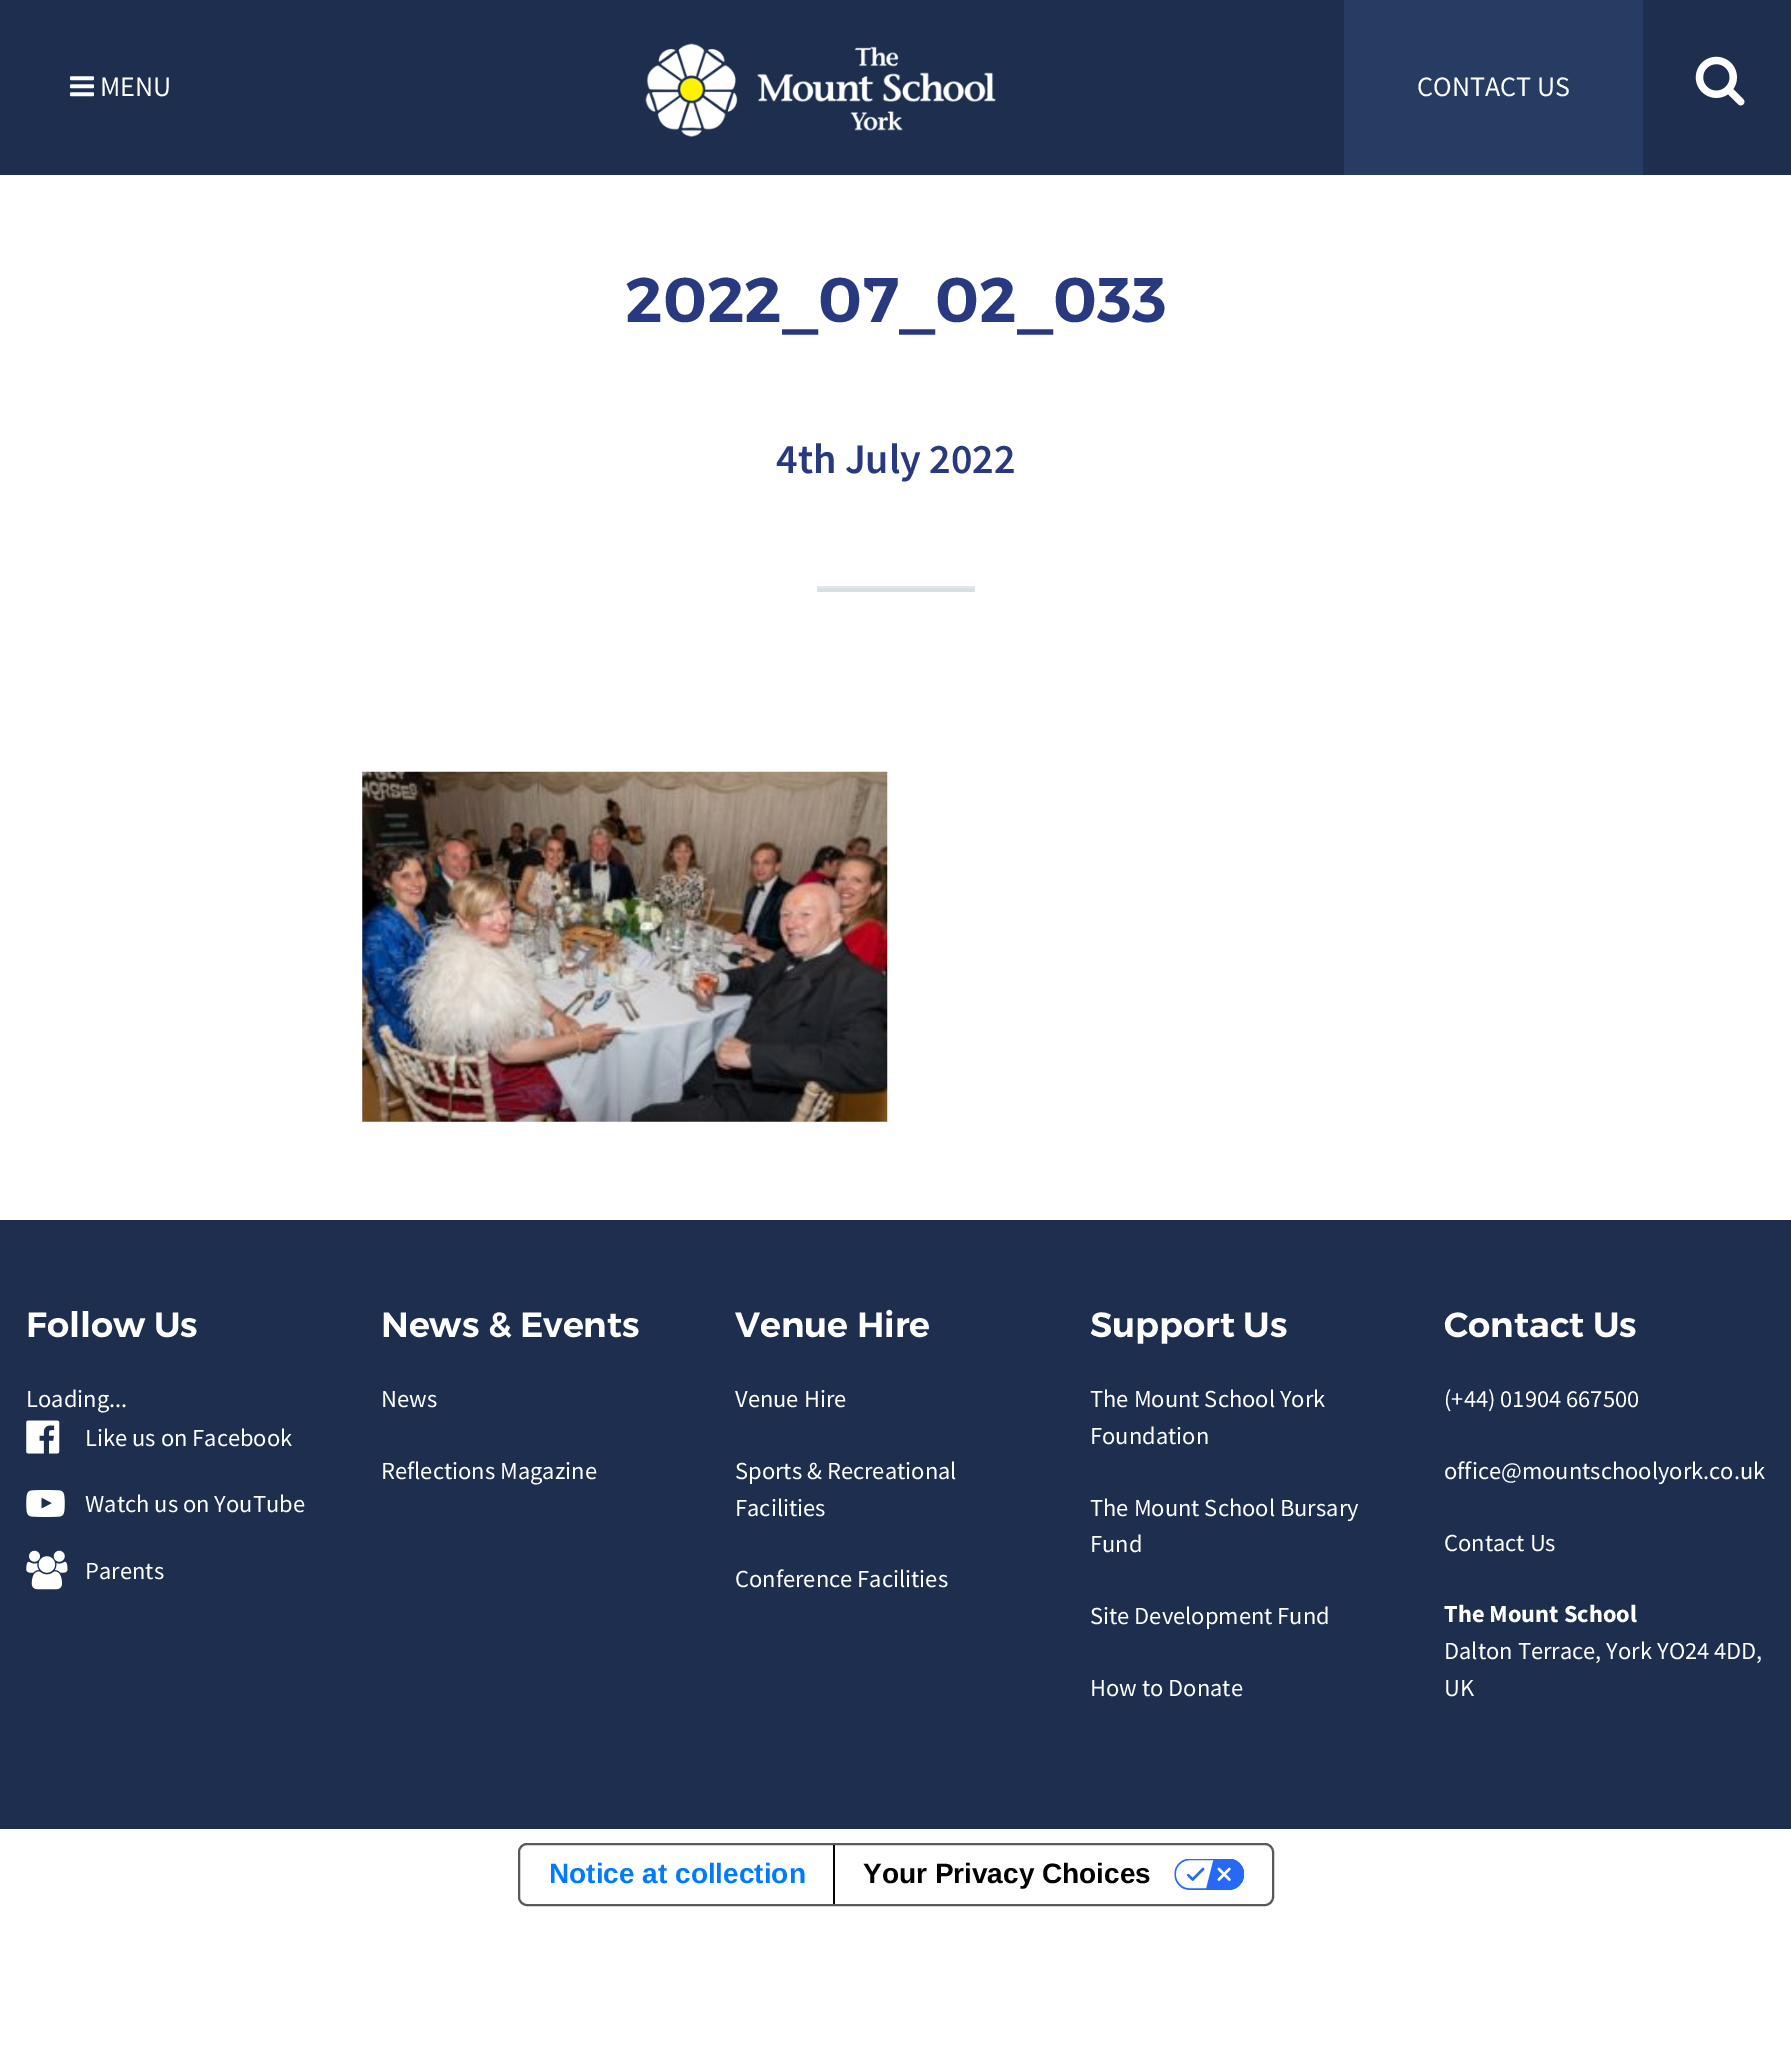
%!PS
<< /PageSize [1791 2054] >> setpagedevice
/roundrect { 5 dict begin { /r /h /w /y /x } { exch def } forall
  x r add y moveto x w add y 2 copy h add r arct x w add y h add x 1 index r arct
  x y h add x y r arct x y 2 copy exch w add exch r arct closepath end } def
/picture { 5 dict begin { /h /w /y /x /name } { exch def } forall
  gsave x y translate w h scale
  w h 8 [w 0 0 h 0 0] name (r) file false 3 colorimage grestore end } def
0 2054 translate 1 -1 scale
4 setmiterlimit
1 setgray
0 0 1791 2054 rectfill
0.114 0.18 0.31 setrgbcolor
0 0 1791 175 rectfill
(img1.rgb) 70 76 24 21 picture
/SourceSansPro-Regular [28 0 0 -28 0 0] selectfont
1 setgray
100 96 moveto (MENU) show
(img2.rgb) 645 43 351 94 picture
0.153 0.235 0.388 setrgbcolor
1344 0 299 175 rectfill
1 setgray
1417 96 moveto (CONTACT US) show
(img3.rgb) 1695 56 50 50 picture
/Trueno-SemiBold [63 0 0 -63 0 0] selectfont
0.161 0.224 0.502 setrgbcolor
625 322 moveto (2022_07_02_033) show
/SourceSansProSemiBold-SemiBold [42 0 0 -42 0 0] selectfont
776 473 moveto (4th July 2022) show
0.902 setgray
817 586 158 2 rectfill
0.851 0.878 0.89 setrgbcolor
817 588 158 4 rectfill
(img4.rgb) 362 771 526 351 picture
0.114 0.18 0.31 setrgbcolor
0 1220 1791 609 rectfill
/Trueno-SemiBold [35 0 0 -35 0 0] selectfont
1 setgray
26 1337 moveto (Follow Us) show
/SourceSansPro-Regular [24.5 0 0 -24.5 0 0] selectfont
26 1407 moveto (Loading...) show
(img5.rgb) 26 1420 34 34 picture
85 1446 moveto (Like us on Facebook) show
(img6.rgb) 26 1490 39 27 picture
85 1512 moveto (Watch us on YouTube) show
(img7.rgb) 26 1550 42 40 picture
85 1579 moveto (Parents) show
/Trueno-SemiBold [35 0 0 -35 0 0] selectfont
381 1337 moveto (News & Events) show
/SourceSansPro-Regular [24.5 0 0 -24.5 0 0] selectfont
381 1407 moveto (News) show
381 1479 moveto (Reflections Magazine) show
/Trueno-SemiBold [35 0 0 -35 0 0] selectfont
735 1337 moveto (Venue Hire) show
/SourceSansPro-Regular [24.5 0 0 -24.5 0 0] selectfont
735 1407 moveto (Venue Hire) show
735 1479 moveto (Sports & Recreational) show
735 1516 moveto (Facilities) show
735 1587 moveto (Conference Facilities) show
/Trueno-SemiBold [35 0 0 -35 0 0] selectfont
1090 1337 moveto (Support Us) show
/SourceSansPro-Regular [24.5 0 0 -24.5 0 0] selectfont
1090 1407 moveto (The Mount School York) show
1090 1444 moveto (Foundation) show
1090 1516 moveto (The Mount School Bursary) show
1090 1552 moveto (Fund) show
1090 1624 moveto (Site Development Fund) show
1090 1696 moveto (How to Donate) show
/Trueno-SemiBold [35 0 0 -35 0 0] selectfont
1444 1337 moveto (Contact Us) show
/SourceSansPro-Regular [24.5 0 0 -24.5 0 0] selectfont
1444 1407 moveto (\(+44\) 01904 667500) show
1444 1479 moveto (office@mountschoolyork.co.uk) show
1444 1551 moveto (Contact Us) show
/SourceSansPro-Bold [24.5 0 0 -24.5 0 0] selectfont
1444 1622 moveto (The Mount School) show
/SourceSansPro-Regular [24.5 0 0 -24.5 0 0] selectfont
1444 1659 moveto (Dalton Terrace, York YO24 4DD,) show
1444 1696 moveto (UK) show
0.349 setgray
2 setlinewidth
519 1844 754 61 8 roundrect stroke
/LiberationSans-Bold [28 0 0 -28 0 0] selectfont
0 0.482 1 setrgbcolor
549 1883 moveto (Notice at collection) show
0 setgray
833 1845 2 59 rectfill
863 1883 moveto (Your Privacy Choices) show
(img8.rgb) 1174 1859 70 31 picture
showpage
